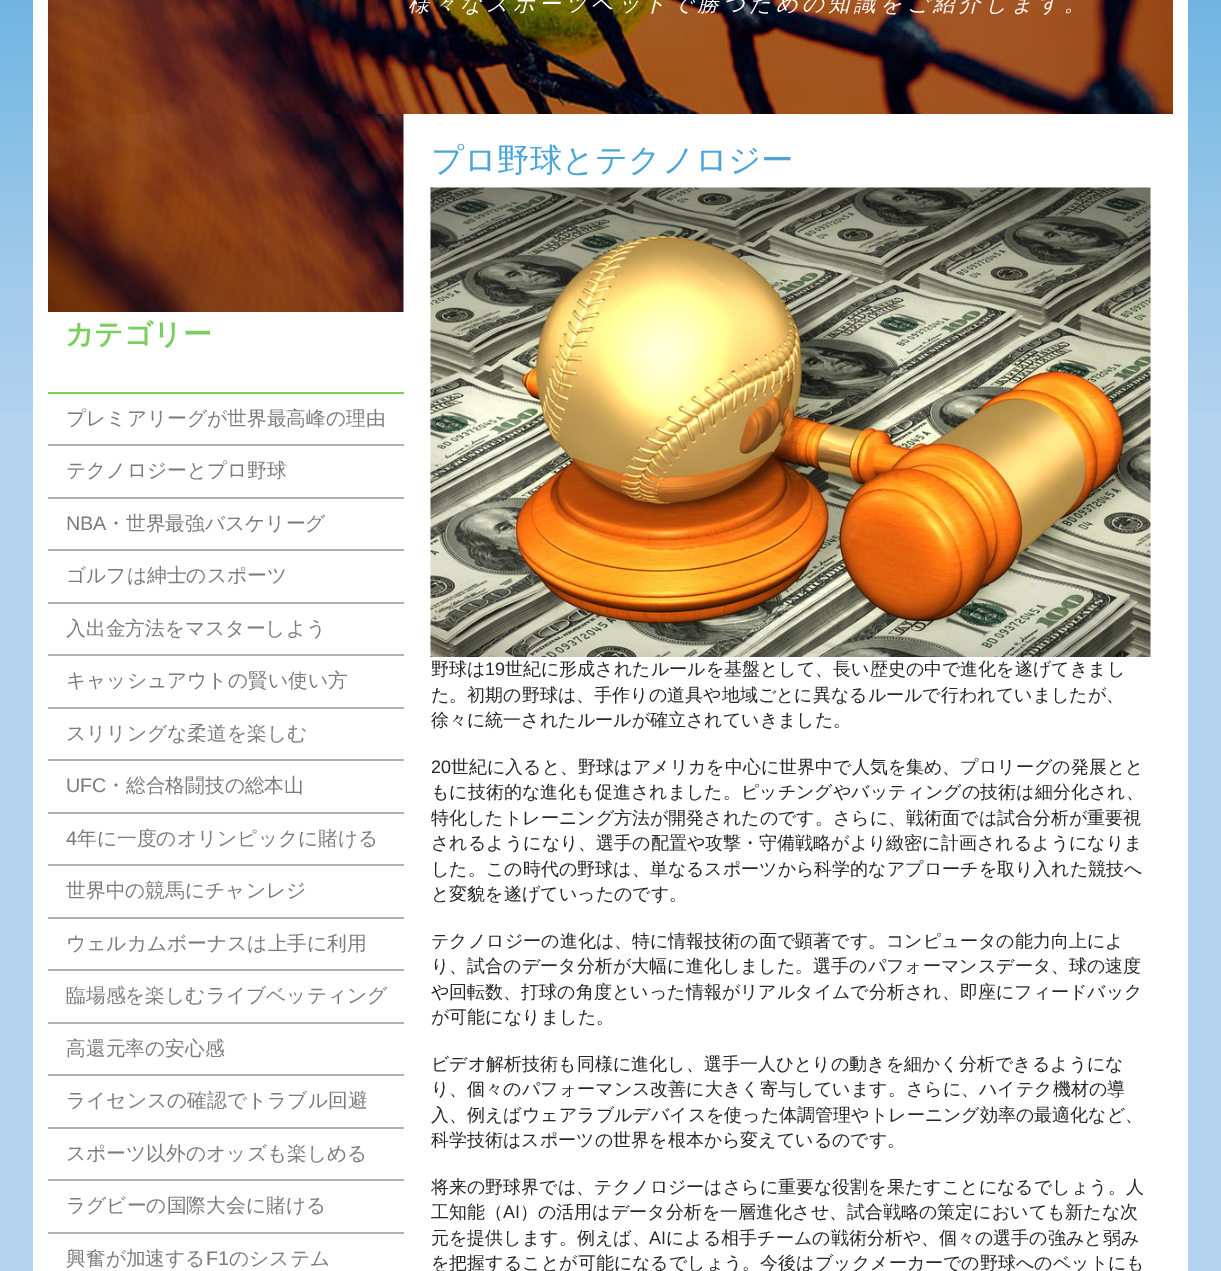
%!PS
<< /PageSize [1221 1271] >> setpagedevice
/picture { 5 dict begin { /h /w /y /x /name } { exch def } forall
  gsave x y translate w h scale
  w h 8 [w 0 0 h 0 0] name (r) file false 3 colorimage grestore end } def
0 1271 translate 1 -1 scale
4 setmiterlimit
0.71 0.827 0.937 setrgbcolor
0 0 1221 1271 rectfill
(img1.rgb) 0 0 1221 414 picture
1 setgray
33 0 1155 1271 rectfill
(img2.rgb) 48 0 1125 114 picture
/WenQuanYiZenHei-MediumItalic [21.6 0 0 -21.6 0 0] selectfont
408 11 moveto 4.3 0 (様々なスポーツベットで勝つための知識をご紹介します。) ashow
(img3.rgb) 48 114 356 198 picture
/WenQuanYiZenHei-Bold [28.75 0 0 -28.75 0 0] selectfont
0.482 0.804 0.373 setrgbcolor
65 344 moveto (カテゴリー) show
48 392 356 2 rectfill
0.694 setgray
48 444 356 2 rectfill
/WenQuanYiZenHei-Medium [19.75 0 0 -19.75 0 0] selectfont
0.486 setgray
66 425 moveto (プレミアリーグが世界最高峰の理由) show
0.694 setgray
48 497 356 2 rectfill
0.486 setgray
66 477 moveto (テクノロジーとプロ野球) show
0.694 setgray
48 549 356 2 rectfill
/LiberationSans-Regular [19.75 0 0 -19.75 0 0] selectfont
0.486 setgray
66 530 moveto (NBA) show
/WenQuanYiZenHei-Medium [19.75 0 0 -19.75 0 0] selectfont
106 530 moveto (・世界最強バスケリーグ) show
0.694 setgray
48 602 356 2 rectfill
0.486 setgray
66 582 moveto (ゴルフは紳士のスポーツ) show
0.694 setgray
48 654 356 2 rectfill
0.486 setgray
66 635 moveto (入出金方法をマスターしよう) show
0.694 setgray
48 707 356 2 rectfill
0.486 setgray
66 687 moveto (キャッシュアウトの賢い使い方) show
0.694 setgray
48 759 356 2 rectfill
0.486 setgray
66 740 moveto (スリリングな柔道を楽しむ) show
0.694 setgray
48 812 356 2 rectfill
/LiberationSans-Regular [19.75 0 0 -19.75 0 0] selectfont
0.486 setgray
66 792 moveto (UFC) show
/WenQuanYiZenHei-Medium [19.75 0 0 -19.75 0 0] selectfont
106 792 moveto (・総合格闘技の総本山) show
0.694 setgray
48 864 356 2 rectfill
/LiberationSans-Regular [19.75 0 0 -19.75 0 0] selectfont
0.486 setgray
66 845 moveto (4) show
/WenQuanYiZenHei-Medium [19.75 0 0 -19.75 0 0] selectfont
77 845 moveto (年に一度のオリンピックに賭ける) show
0.694 setgray
48 917 356 2 rectfill
0.486 setgray
66 897 moveto (世界中の競馬にチャンレジ) show
0.694 setgray
48 969 356 2 rectfill
0.486 setgray
66 950 moveto (ウェルカムボーナスは上手に利用) show
0.694 setgray
48 1022 356 2 rectfill
0.486 setgray
66 1002 moveto (臨場感を楽しむライブベッティング) show
0.694 setgray
48 1074 356 2 rectfill
0.486 setgray
66 1055 moveto (高還元率の安心感) show
0.694 setgray
48 1127 356 2 rectfill
0.486 setgray
66 1107 moveto (ライセンスの確認でトラブル回避) show
0.694 setgray
48 1179 356 2 rectfill
0.486 setgray
66 1160 moveto (スポーツ以外のオッズも楽しめる) show
0.694 setgray
48 1232 356 2 rectfill
0.486 setgray
66 1212 moveto (ラグビーの国際大会に賭ける) show
66 1265 moveto (興奮が加速する) show
/LiberationSans-Regular [19.75 0 0 -19.75 0 0] selectfont
206 1265 moveto (F1) show
/WenQuanYiZenHei-Medium [19.75 0 0 -19.75 0 0] selectfont
229 1265 moveto (のシステム) show
/WenQuanYiZenHei-Medium [32.4 0 0 -32.4 0 0] selectfont
0.294 0.647 0.855 setrgbcolor
431 171 moveto (プロ野球とテクノロジー) show
(img4.rgb) 430 187 721 470 picture
/WenQuanYiZenHei-Medium [18 0 0 -18 0 0] selectfont
0.157 setgray
431 675 moveto (野球は) show
/LiberationSans-Regular [18 0 0 -18 0 0] selectfont
485 675 moveto (19) show
/WenQuanYiZenHei-Medium [18 0 0 -18 0 0] selectfont
505 675 moveto (世紀に形成されたルールを基盤として、長い歴史の中で進化を遂げてきまし) show
431 701 moveto (た。初期の野球は、手作りの道具や地域ごとに異なるルールで行われていましたが、) show
431 726 moveto (徐々に統一されたルールが確立されていきました。) show
/LiberationSans-Regular [18 0 0 -18 0 0] selectfont
431 773 moveto (20) show
/WenQuanYiZenHei-Medium [18 0 0 -18 0 0] selectfont
451 773 moveto (世紀に入ると、野球はアメリカを中心に世界中で人気を集め、プロリーグの発展とと) show
431 798 moveto (もに技術的な進化も促進されました。ピッチングやバッティングの技術は細分化され、) show
431 824 moveto (特化したトレーニング方法が開発されたのです。さらに、戦術面では試合分析が重要視) show
431 849 moveto (されるようになり、選手の配置や攻撃・守備戦略がより緻密に計画されるようになりま) show
431 875 moveto (した。この時代の野球は、単なるスポーツから科学的なアプローチを取り入れた競技へ) show
431 900 moveto (と変貌を遂げていったのです。) show
431 947 moveto (テクノロジーの進化は、特に情報技術の面で顕著です。コンピュータの能力向上によ) show
431 972 moveto (り、試合のデータ分析が大幅に進化しました。選手のパフォーマンスデータ、球の速度) show
431 998 moveto (や回転数、打球の角度といった情報がリアルタイムで分析され、即座にフィードバック) show
431 1023 moveto (が可能になりました。) show
431 1070 moveto (ビデオ解析技術も同様に進化し、選手一人ひとりの動きを細かく分析できるようにな) show
431 1095 moveto (り、個々のパフォーマンス改善に大きく寄与しています。さらに、ハイテク機材の導) show
431 1121 moveto (入、例えばウェアラブルデバイスを使った体調管理やトレーニング効率の最適化など、) show
431 1146 moveto (科学技術はスポーツの世界を根本から変えているのです。) show
431 1193 moveto (将来の野球界では、テクノロジーはさらに重要な役割を果たすことになるでしょう。人) show
431 1218 moveto (工知能（) show
/LiberationSans-Regular [18 0 0 -18 0 0] selectfont
503 1218 moveto (AI) show
/WenQuanYiZenHei-Medium [18 0 0 -18 0 0] selectfont
520 1218 moveto (）の活用はデータ分析を一層進化させ、試合戦略の策定においても新たな次) show
431 1244 moveto (元を提供します。例えば、) show
/LiberationSans-Regular [18 0 0 -18 0 0] selectfont
649 1244 moveto (AI) show
/WenQuanYiZenHei-Medium [18 0 0 -18 0 0] selectfont
666 1244 moveto (による相手チームの戦術分析や、個々の選手の強みと弱み) show
431 1269 moveto (を把握することが可能になるでしょう。今後はブックメーカーでの野球へのベットにも) show
showpage
